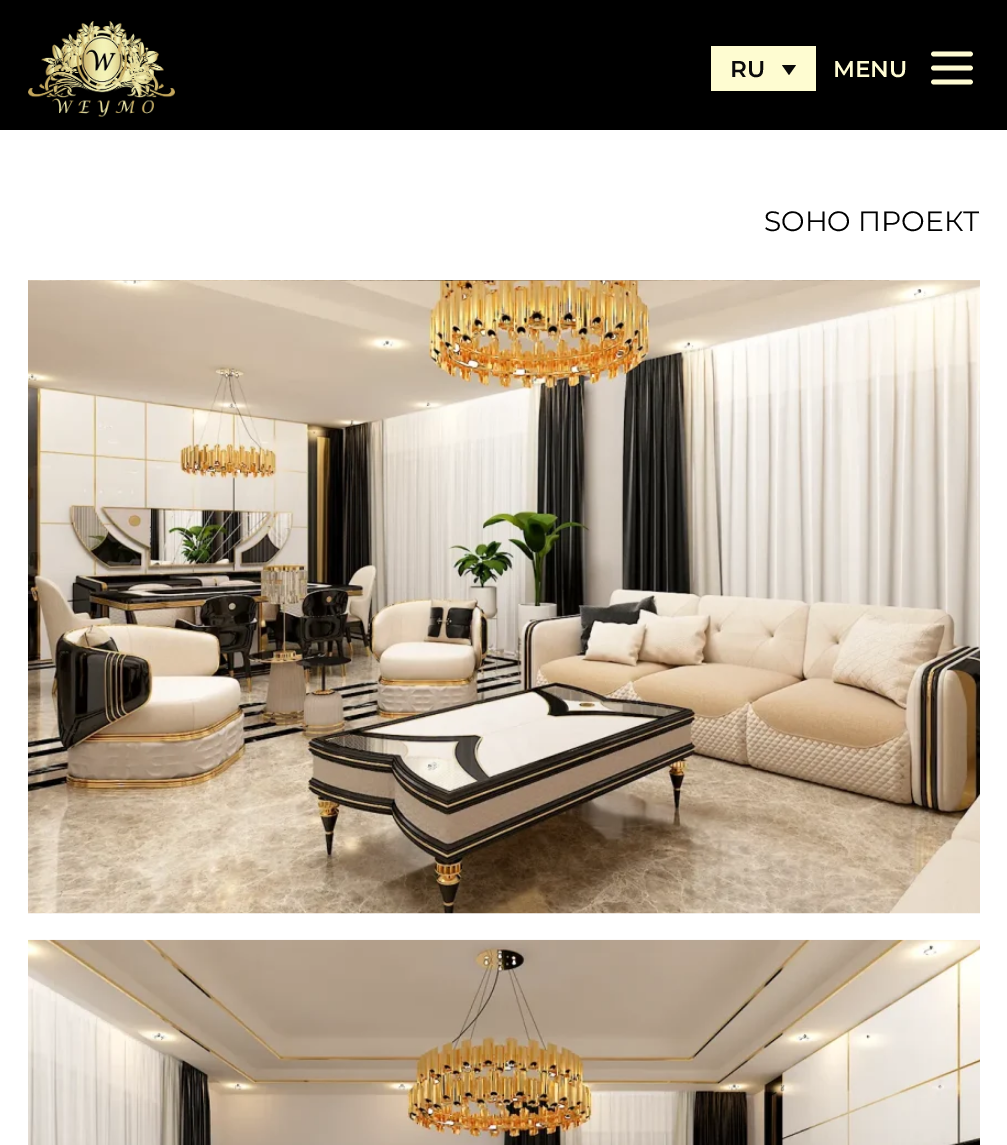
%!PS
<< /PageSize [1007 1145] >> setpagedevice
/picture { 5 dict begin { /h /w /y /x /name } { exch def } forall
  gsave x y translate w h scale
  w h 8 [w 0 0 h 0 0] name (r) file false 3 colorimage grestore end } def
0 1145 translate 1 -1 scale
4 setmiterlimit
1 setgray
0 0 1007 1145 rectfill
0 setgray
0 0 1007 130 rectfill
(img1.rgb) 28 21 147 96 picture
0.996 0.988 0.82 setrgbcolor
711 46 105 45 rectfill
/Montserrat-SemiBold [23 0 0 -23 0 0] selectfont
0.039 setgray
730 77 moveto (RU) show
newpath 782 65 moveto 796 65 lineto 789 75 lineto closepath fill
1 0.988 0.827 setrgbcolor
833 77 moveto (MENU) show
4.7 setlinewidth
1 setlinecap
1 setlinejoin
newpath 933.5 54 moveto 970.5 54 lineto 933.5 68 moveto 970.5 68 lineto 933.5 82 moveto 970.5 82 lineto stroke
/Montserrat-Regular [28 0 0 -28 0 0] selectfont
0 setgray
764 231 moveto (SOHO ПРОЕКТ) show
(img2.rgb) 28 280 952 634 picture
(img3.rgb) 28 939 952 206 picture
showpage
